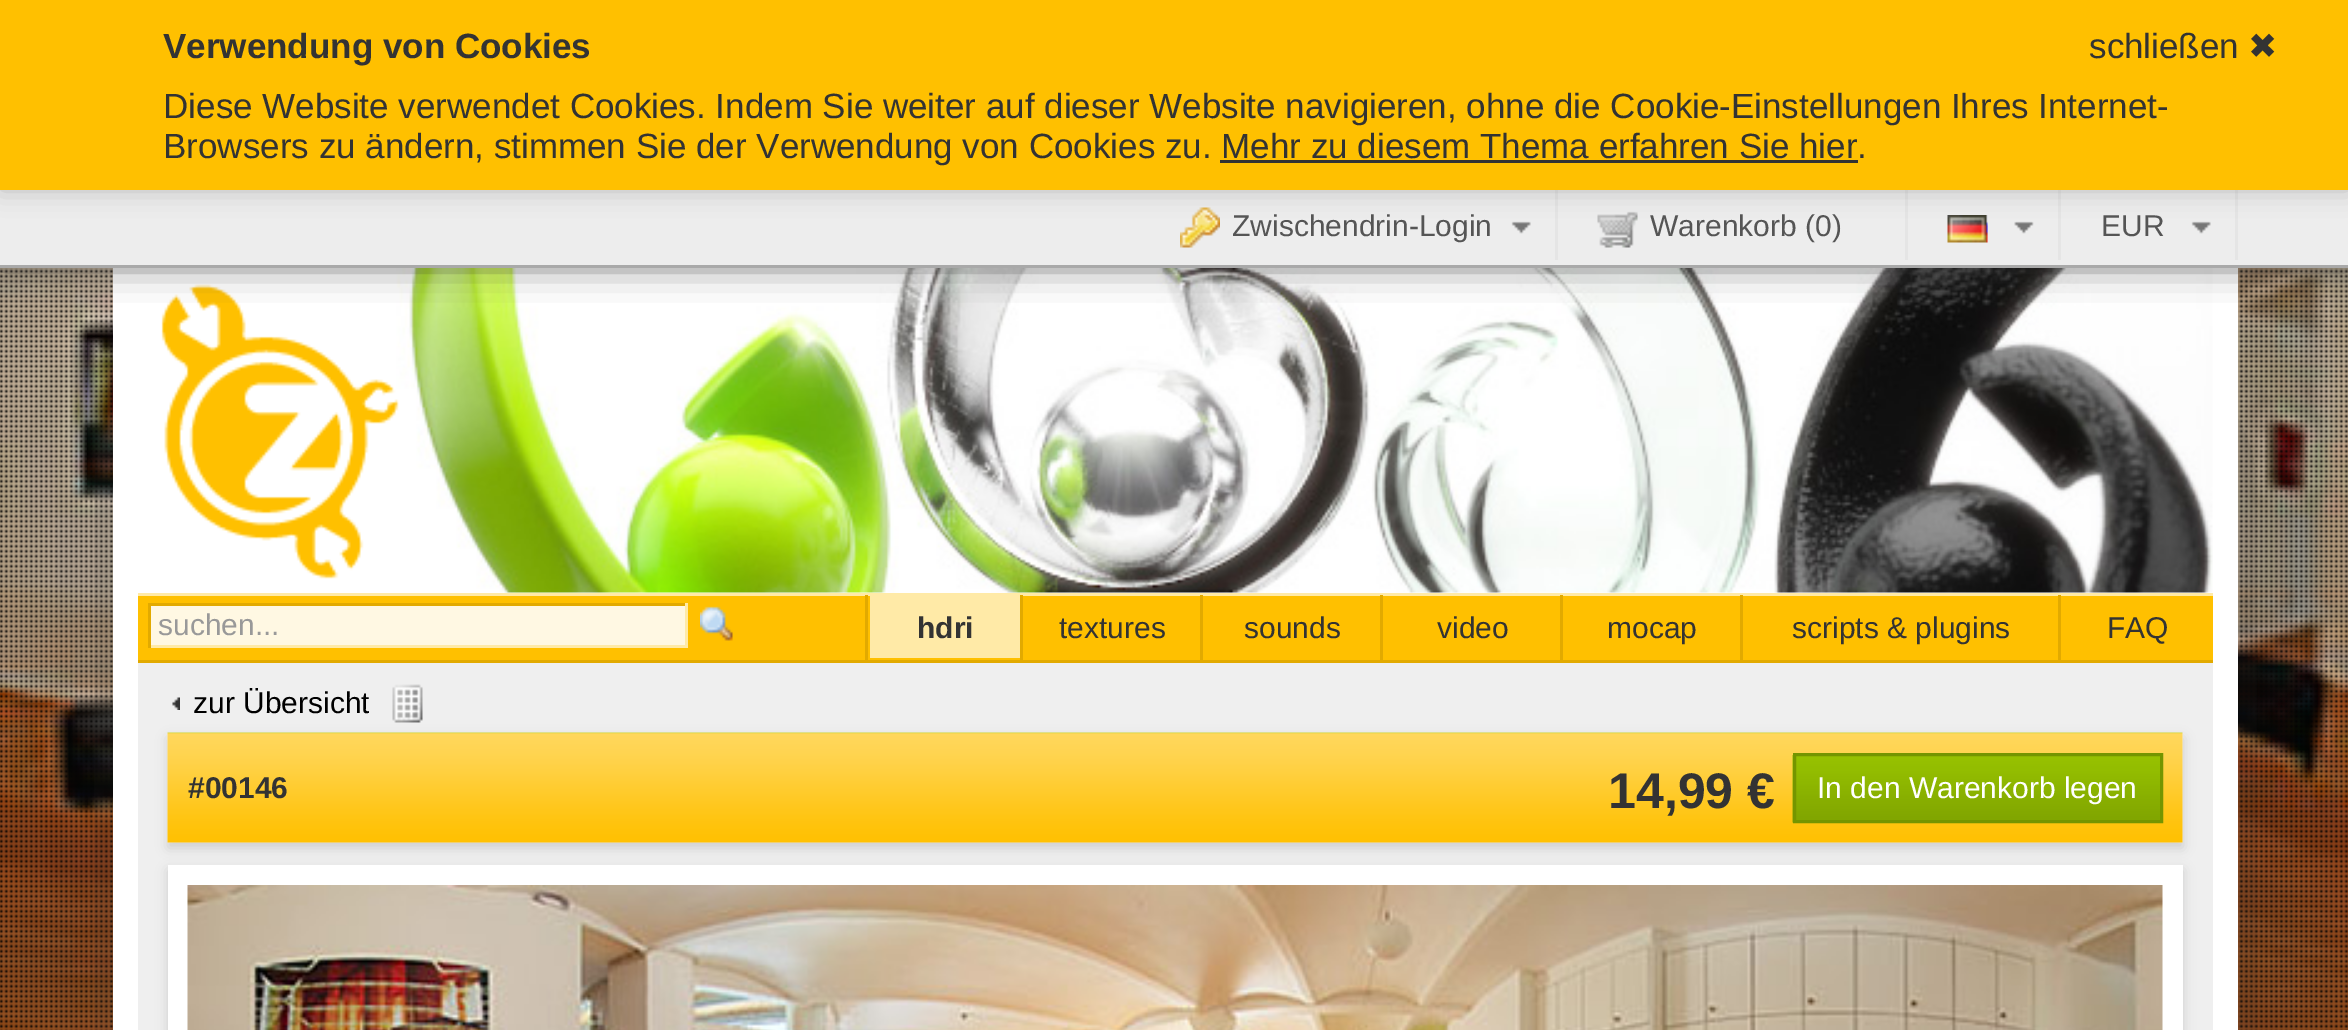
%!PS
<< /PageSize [2348 1030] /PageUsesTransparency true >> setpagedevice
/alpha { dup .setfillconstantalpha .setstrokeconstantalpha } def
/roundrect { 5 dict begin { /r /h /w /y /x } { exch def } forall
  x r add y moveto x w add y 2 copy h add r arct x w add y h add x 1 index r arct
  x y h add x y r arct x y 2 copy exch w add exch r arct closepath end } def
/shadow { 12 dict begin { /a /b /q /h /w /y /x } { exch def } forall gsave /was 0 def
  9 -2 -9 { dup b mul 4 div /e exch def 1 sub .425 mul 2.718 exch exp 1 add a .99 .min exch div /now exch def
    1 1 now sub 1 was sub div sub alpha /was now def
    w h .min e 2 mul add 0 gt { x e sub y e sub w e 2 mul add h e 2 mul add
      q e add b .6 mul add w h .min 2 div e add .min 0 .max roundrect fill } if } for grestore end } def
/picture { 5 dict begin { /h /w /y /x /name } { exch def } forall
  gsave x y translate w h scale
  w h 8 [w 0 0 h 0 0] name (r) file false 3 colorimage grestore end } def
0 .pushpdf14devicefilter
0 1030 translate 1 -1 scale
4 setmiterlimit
1 setgray
0 0 2348 1030 rectfill
(img1.rgb) 0 268 2348 762 picture
(img2.rgb) 0 268 2348 762 picture
0.2 setgray
188 443 1975 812 0 75 1 shadow
1 setgray
113 268 2125 762 rectfill
(img8.rgb) 137 268 2076 325 picture
(img9.rgb) 161 284 238 295 picture
0.2 setgray
0 183 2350 77 0 19 1 shadow
0.929 setgray
0 190 2348 75 rectfill
0.898 setgray
1555 190 3 70 rectfill
(img3.rgb) 1180 207 40 41 picture
(img4.rgb) 1511 221 20 13 picture
1905 190 3 70 rectfill
(img5.rgb) 1597 211 41 37 picture
2058 190 3 70 rectfill
(img6.rgb) 1947 215 41 28 picture
(img7.rgb) 2014 221 20 13 picture
2235 190 3 70 rectfill
(img4.rgb) 2191 221 20 13 picture
0 setgray
0 0 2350 190 0 12.5 0.2 shadow
1 0.753 0 setrgbcolor
0 0 2348 190 rectfill
/LiberationSans-Bold [35 0 0 -35 0 0] selectfont
0.2 setgray
163 58 moveto (Verwendung von Cookies) show
/LiberationSans-Regular [35 0 0 -35 0 0] selectfont
2089 58 moveto (schließen) show
/DejaVuSans-Regular [35 0 0 -35 0 0] selectfont
2248 58 moveto (✖) show
/LiberationSans-Regular [35 0 0 -35 0 0] selectfont
163 118 moveto (Diese Website verwendet Cookies. Indem Sie weiter auf dieser Website navigieren, ohne die Cookie-Einstellungen Ihres Internet-) show
163 158 moveto (Browsers zu ändern, stimmen Sie der Verwendung von Cookies zu. Mehr zu diesem Thema erfahren Sie hier.) show
1220 160 638 3 rectfill
0.663 setgray
0 265 2348 3 rectfill
/LiberationSans-Regular [30 0 0 -30 0 0] selectfont
0.333 setgray
1232 236 moveto (Zwischendrin-Login) show
1650 236 moveto (Warenkorb \(0\)) show
2101 236 moveto (EUR) show
0.937 setgray
138 663 2075 367 rectfill
1 0.753 0 setrgbcolor
138 596 2075 64 rectfill
1 0.918 0.655 setrgbcolor
138 593 2075 3 rectfill
0.886 0.667 0 setrgbcolor
138 660 2075 3 rectfill
1 0.973 0.89 setrgbcolor
151 606 534 39 rectfill
0.886 0.667 0 setrgbcolor
148 603 540 3 rectfill
1 0.918 0.655 setrgbcolor
685 603 3 45 rectfill
148 645 540 3 rectfill
0.886 0.667 0 setrgbcolor
148 603 3 45 rectfill
0.6 setgray
158 635 moveto (suchen...) show
(img10.rgb) 700 606 33 35 picture
0.886 0.667 0 setrgbcolor
865 595 3 68 rectfill
1 0.918 0.655 setrgbcolor
870 596 150 62 rectfill
/LiberationSans-Bold [30 0 0 -30 0 0] selectfont
0.2 setgray
917 638 moveto (hdri) show
0.886 0.667 0 setrgbcolor
1020 595 3 68 rectfill
/LiberationSans-Regular [30 0 0 -30 0 0] selectfont
0.2 setgray
1059 638 moveto (textures) show
0.886 0.667 0 setrgbcolor
1200 595 3 68 rectfill
0.2 setgray
1244 638 moveto (sounds) show
0.886 0.667 0 setrgbcolor
1380 595 3 68 rectfill
0.2 setgray
1437 638 moveto (video) show
0.886 0.667 0 setrgbcolor
1560 595 3 68 rectfill
0.2 setgray
1607 638 moveto (mocap) show
0.886 0.667 0 setrgbcolor
1740 595 3 68 rectfill
0.2 setgray
1792 638 moveto (scripts & plugins) show
0.886 0.667 0 setrgbcolor
2058 595 3 68 rectfill
0.2 setgray
2107 638 moveto (FAQ) show
(img11.rgb) 172 697 8 13 picture
0 setgray
193 713 moveto (zur Übersicht) show
(img12.rgb) 392 684 31 39 picture
0.8 setgray
168 738 2015 110 0 6 1 shadow
(img13.rgb) 167 732 2016 111 picture
/LiberationSans-Bold [30 0 0 -30 0 0] selectfont
0.2 setgray
188 798 moveto (#00146) show
/LiberationSans-Bold [50 0 0 -50 0 0] selectfont
1608 808 moveto (14,99 €) show
(img14.rgb) 1792 755 368 68 picture
0.455 0.584 0 setrgbcolor
3 setlinewidth
1794.5 754.5 367 67 rectstroke
/LiberationSans-Regular [30 0 0 -30 0 0] selectfont
1 setgray
1817 798 moveto (In den Warenkorb legen) show
0.8 setgray
168 870 2015 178 0 6 1 shadow
1 setgray
168 865 2015 165 rectfill
(img15.rgb) 187 885 1976 145 picture
.poppdf14devicefilter showpage
